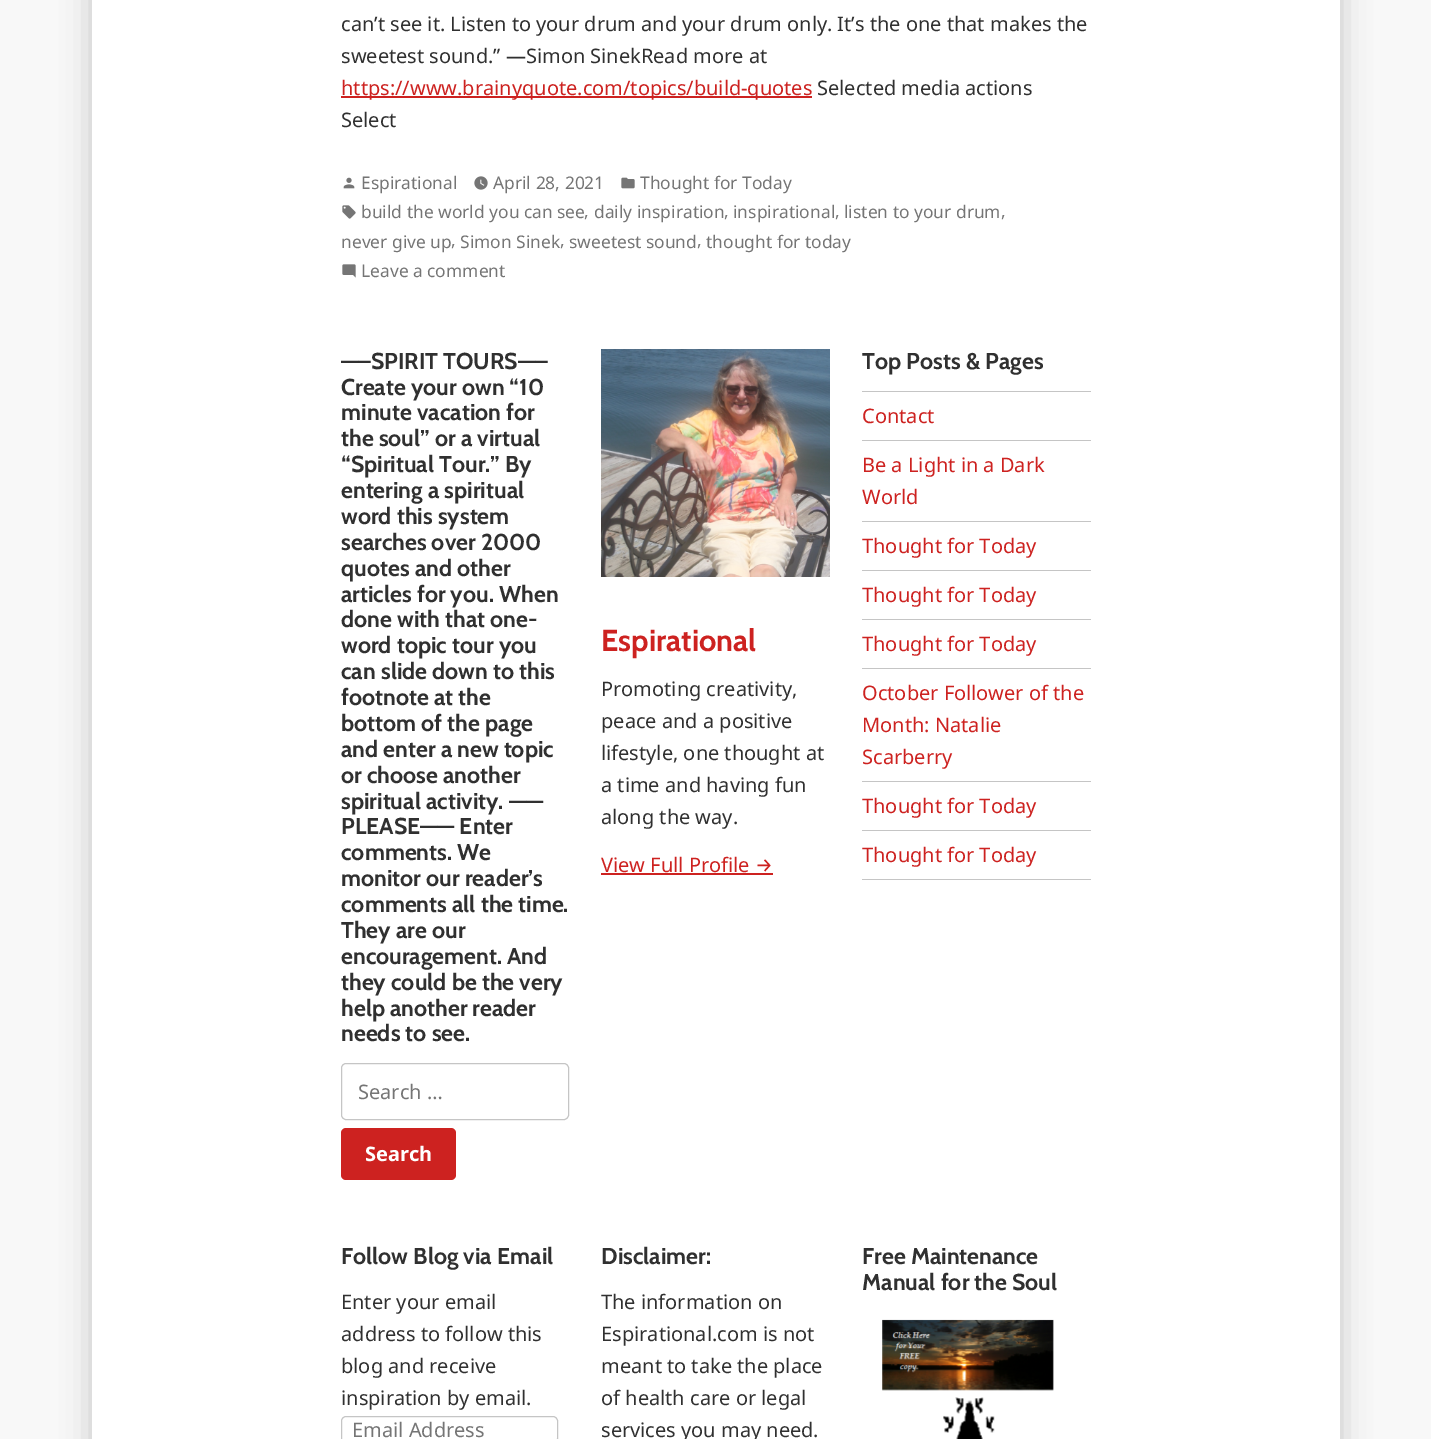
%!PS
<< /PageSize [1431 1439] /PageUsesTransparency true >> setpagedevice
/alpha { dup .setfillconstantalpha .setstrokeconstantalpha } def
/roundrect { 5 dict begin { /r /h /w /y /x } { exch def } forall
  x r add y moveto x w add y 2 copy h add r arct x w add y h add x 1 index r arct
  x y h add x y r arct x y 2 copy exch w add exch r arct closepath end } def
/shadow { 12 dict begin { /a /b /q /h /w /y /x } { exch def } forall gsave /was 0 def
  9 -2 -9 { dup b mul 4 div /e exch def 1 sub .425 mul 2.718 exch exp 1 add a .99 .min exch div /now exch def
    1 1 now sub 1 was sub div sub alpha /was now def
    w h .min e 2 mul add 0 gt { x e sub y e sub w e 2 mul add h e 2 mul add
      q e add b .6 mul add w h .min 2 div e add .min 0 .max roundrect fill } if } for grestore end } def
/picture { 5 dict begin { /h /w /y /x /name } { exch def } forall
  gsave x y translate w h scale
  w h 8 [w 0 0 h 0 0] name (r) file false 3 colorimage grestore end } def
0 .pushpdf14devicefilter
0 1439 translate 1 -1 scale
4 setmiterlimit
0.973 setgray
0 0 1431 1439 rectfill
0 setgray
92 -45 1248 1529 0 15 0.2 shadow
1 setgray
92 0 1248 1439 rectfill
/NotoSans-Regular [20 0 0 -20 0 0] selectfont
0.188 setgray
341 31 moveto (can’t see it. Listen to your drum and your drum only. It’s the one that makes the) show
341 63 moveto (sweetest sound.” —Simon SinekRead more at) show
0.804 0.133 0.125 setrgbcolor
341 96 471 2 rectfill
341 95 moveto (https://www.brainyquote.com/topics/build-quotes) show
0.188 setgray
817 95 moveto (Selected media actions) show
341 127 moveto (Select) show
(img1.rgb) 343 177 12 12 picture
/NotoSans-Regular [17.4 0 0 -17.4 0 0] selectfont
0.459 setgray
361 189 moveto (Espirational) show
(img2.rgb) 474 176 14 14 picture
493 189 moveto (April 28, 2021) show
(img3.rgb) 621 177 14 12 picture
640 189 moveto (Thought for Today) show
(img4.rgb) 342 205 14 14 picture
361 218 moveto (build the world you can see) show
584 217 moveto (,) show
594 218 moveto (daily inspiration) show
724 217 moveto (,) show
733 218 moveto (inspirational) show
835 217 moveto (,) show
844 218 moveto (listen to your drum) show
1001 217 moveto (,) show
341 248 moveto (never give up) show
451 246 moveto (,) show
460 248 moveto (Simon Sinek) show
560 246 moveto (,) show
569 248 moveto (sweetest sound) show
697 246 moveto (,) show
706 248 moveto (thought for today) show
(img5.rgb) 342 264 14 14 picture
361 277 moveto (Leave a comment) show
gsave
341 317 750 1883 rectclip
/Cabin-Bold [23 0 0 -23 0 0] selectfont
0.188 setgray
341 369 moveto (—–SPIRIT TOURS—–) show
grestore
/Cabin-Bold [23 0 0 -23 0 0] selectfont
0.188 setgray
341 395 moveto (Create your own “10) show
341 420 moveto (minute vacation for) show
341 446 moveto (the soul” or a virtual) show
341 472 moveto (“Spiritual Tour.” By) show
341 498 moveto (entering a spiritual) show
341 524 moveto (word this system) show
341 550 moveto (searches over 2000) show
341 576 moveto (quotes and other) show
341 602 moveto (articles for you. When) show
341 627 moveto (done with that one-) show
341 653 moveto (word topic tour you) show
341 679 moveto (can slide down to this) show
341 705 moveto (footnote at the) show
341 731 moveto (bottom of the page) show
341 757 moveto (and enter a new topic) show
341 783 moveto (or choose another) show
341 809 moveto (spiritual activity. ——) show
341 834 moveto (PLEASE—— Enter) show
341 860 moveto (comments. We) show
341 886 moveto (monitor our reader’s) show
341 912 moveto (comments all the time.) show
gsave
341 317 750 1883 rectclip
341 938 moveto (They are our) show
grestore
341 964 moveto (encouragement. And) show
341 990 moveto (they could be the very) show
341 1016 moveto (help another reader) show
341 1041 moveto (needs to see.) show
0.773 setgray
341.5 1063.5 227 56 4.5 roundrect stroke
/NotoSans-Regular [20 0 0 -20 0 0] selectfont
0.459 setgray
358 1099 moveto (Search …) show
0.804 0.133 0.125 setrgbcolor
341 1128 115 52 5 roundrect fill
/NotoSans-Bold [20 0 0 -20 0 0] selectfont
1 setgray
365 1161 moveto (Search) show
(img6.rgb) 601 349 229 228 picture
/Cabin-Bold [30.5 0 0 -30.5 0 0] selectfont
0.804 0.133 0.125 setrgbcolor
601 651 moveto (Espirational) show
/NotoSans-Regular [20 0 0 -20 0 0] selectfont
0.188 setgray
601 696 moveto (Promoting creativity,) show
601 728 moveto (peace and a positive) show
601 760 moveto (lifestyle, one thought at) show
601 792 moveto (a time and having fun) show
601 824 moveto (along the way.) show
0.804 0.133 0.125 setrgbcolor
601 872 moveto (View Full Profile) show
/FiraSans-Regular [20 0 0 -20 0 0] selectfont
755 872 moveto (→) show
601 873 172 2 rectfill
/Cabin-Bold [23 0 0 -23 0 0] selectfont
0.188 setgray
862 369 moveto (Top Posts & Pages) show
0.773 setgray
862 879 229 1 rectfill
862 391 229 1 rectfill
/NotoSans-Regular [20 0 0 -20 0 0] selectfont
0.804 0.133 0.125 setrgbcolor
862 423 moveto (Contact) show
0.773 setgray
862 440 229 1 rectfill
0.804 0.133 0.125 setrgbcolor
862 472 moveto (Be a Light in a Dark) show
862 504 moveto (World) show
0.773 setgray
862 521 229 1 rectfill
0.804 0.133 0.125 setrgbcolor
862 553 moveto (Thought for Today) show
0.773 setgray
862 570 229 1 rectfill
0.804 0.133 0.125 setrgbcolor
862 602 moveto (Thought for Today) show
0.773 setgray
862 619 229 1 rectfill
0.804 0.133 0.125 setrgbcolor
862 651 moveto (Thought for Today) show
0.773 setgray
862 668 229 1 rectfill
0.804 0.133 0.125 setrgbcolor
862 700 moveto (October Follower of the) show
862 732 moveto (Month: Natalie) show
862 764 moveto (Scarberry) show
0.773 setgray
862 781 229 1 rectfill
0.804 0.133 0.125 setrgbcolor
862 813 moveto (Thought for Today) show
0.773 setgray
862 830 229 1 rectfill
0.804 0.133 0.125 setrgbcolor
862 862 moveto (Thought for Today) show
/Cabin-Bold [23 0 0 -23 0 0] selectfont
0.188 setgray
341 1264 moveto (Follow Blog via Email) show
/NotoSans-Regular [20 0 0 -20 0 0] selectfont
341 1309 moveto (Enter your email) show
341 1341 moveto (address to follow this) show
341 1373 moveto (blog and receive) show
341 1405 moveto (inspiration by email.) show
0.773 setgray
341.5 1416.5 216 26 4.5 roundrect stroke
0.459 setgray
352 1437 moveto (Email Address) show
/Cabin-Bold [23 0 0 -23 0 0] selectfont
0.188 setgray
601 1264 moveto (Disclaimer:) show
/NotoSans-Regular [20 0 0 -20 0 0] selectfont
601 1309 moveto (The information on) show
601 1341 moveto (Espirational.com is not) show
601 1373 moveto (meant to take the place) show
601 1405 moveto (of health care or legal) show
601 1437 moveto (services you may need.) show
/Cabin-Bold [23 0 0 -23 0 0] selectfont
862 1264 moveto (Free Maintenance) show
862 1290 moveto (Manual for the Soul) show
(img7.rgb) 882 1319 172 120 picture
.poppdf14devicefilter showpage
